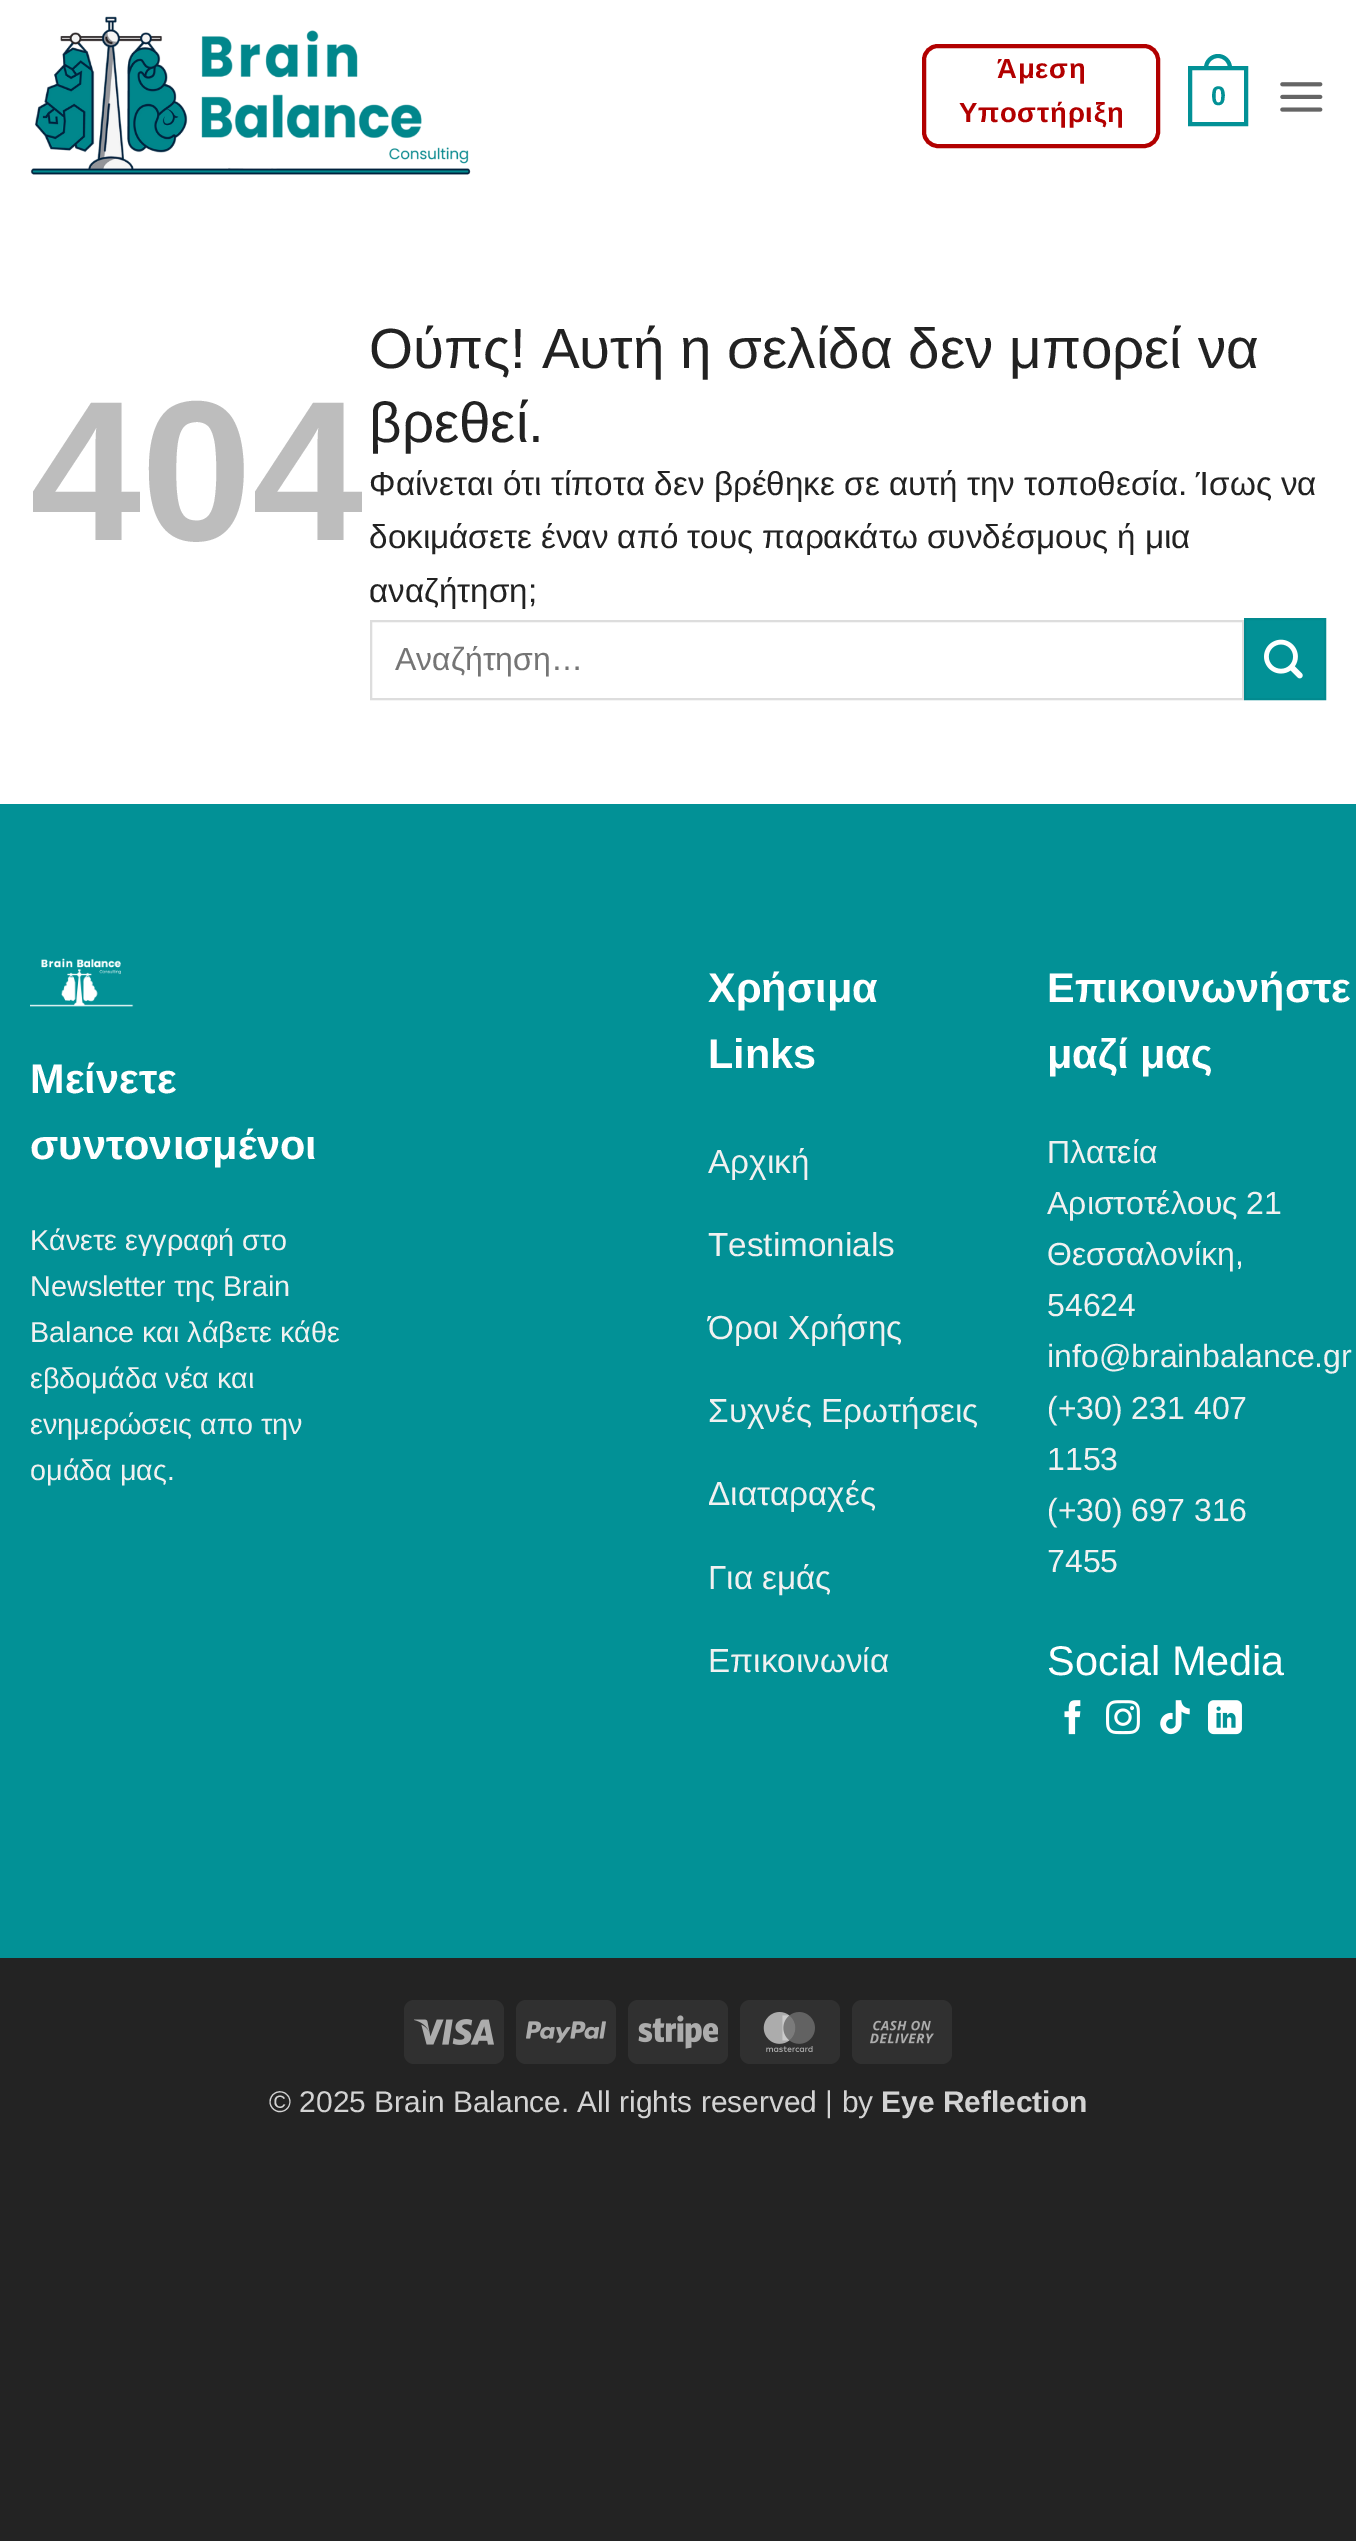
%!PS
<< /PageSize [1356 2541] >> setpagedevice
/roundrect { 5 dict begin { /r /h /w /y /x } { exch def } forall
  x r add y moveto x w add y 2 copy h add r arct x w add y h add x 1 index r arct
  x y h add x y r arct x y 2 copy exch w add exch r arct closepath end } def
/picture { 5 dict begin { /h /w /y /x /name } { exch def } forall
  gsave x y translate w h scale
  w h 8 [w 0 0 h 0 0] name (r) file false 3 colorimage grestore end } def
0 2541 translate 1 -1 scale
4 setmiterlimit
0.137 setgray
0 0 1356 2541 rectfill
1 setgray
0 0 1356 804 rectfill
(img1.rgb) 30 16 441 159 picture
0.698 0 0 setrgbcolor
4 setlinewidth
924 46 234 100 14 roundrect stroke
/LiberationSans-Bold [27.5 0 0 -27.5 0 0] selectfont
997 78 moveto 0.75 0 (Άμεση) ashow
959 122 moveto 0.75 0 (Υποστήριξη) ashow
0.008 0.569 0.588 setrgbcolor
1190 68 56 56 rectstroke
newpath 1218 54 moveto 1225.5 54 1232 60.5 1232 68 curveto 1232 70 lineto 1204 70 lineto 1204 68 lineto 1204 60.5 1210.5 54 1218 54 curveto closepath 1218 58 moveto 1223.5 58 1228 62.5 1228 68 curveto 1228 70 lineto 1208 70 lineto 1208 68 lineto 1208 62.5 1212.5 58 1218 58 curveto closepath eofill
/LiberationSans-Bold [27 0 0 -27 0 0] selectfont
1211 105 moveto (0) show
(img2.rgb) 1280 82 43 30 picture
/LiberationSans-Bold [200 0 0 -200 0 0] selectfont
0.741 setgray
30 540 moveto (404) show
/LiberationSans-Regular [56.6 0 0 -56.6 0 0] selectfont
0.133 setgray
369 368 moveto (Ούπς! Αυτή η σελίδα δεν μπορεί να) show
369 442 moveto (βρεθεί.) show
/LiberationSans-Regular [33.25 0 0 -33.25 0 0] selectfont
369 495 moveto (Φαίνεται ότι τίποτα δεν βρέθηκε σε αυτή την τοποθεσία. Ίσως να) show
369 548 moveto (δοκιμάσετε έναν από τους παρακάτω συνδέσμους ή μια) show
369 602 moveto (αναζήτηση;) show
0.867 setgray
2 setlinewidth
371 621 872 78 rectstroke
/LiberationSans-Regular [32 0 0 -32 0 0] selectfont
0.459 setgray
395 670 moveto (Αναζήτηση…) show
0.008 0.569 0.588 setrgbcolor
newpath 1245 619 moveto 1325 619 lineto 1325 699 lineto 1245 699 lineto closepath gsave fill grestore
0.008 0.541 0.561 setrgbcolor
stroke
(img3.rgb) 1264 639 39 40 picture
0.008 0.569 0.588 setrgbcolor
0 804 1356 1154 rectfill
(img4.rgb) 30 958 104 49 picture
/LiberationSans-Bold [41.5 0 0 -41.5 0 0] selectfont
1 setgray
30 1093 moveto (Μείνετε) show
30 1159 moveto (συντονισμένοι) show
/LiberationSans-Regular [28.75 0 0 -28.75 0 0] selectfont
0.945 setgray
30 1250 moveto (Κάνετε εγγραφή στο) show
30 1296 moveto (Newsletter της Brain) show
30 1342 moveto (Balance και λάβετε κάθε) show
30 1388 moveto (εβδομάδα νέα και) show
30 1434 moveto (ενημερώσεις απο την) show
30 1480 moveto (ομάδα μας.) show
/LiberationSans-Bold [41.5 0 0 -41.5 0 0] selectfont
1 setgray
708 1002 moveto (Χρήσιμα) show
708 1068 moveto (Links) show
/LiberationSans-Regular [33.25 0 0 -33.25 0 0] selectfont
0.945 setgray
708 1173 moveto (Αρχική) show
708 1256 moveto (Testimonials) show
708 1339 moveto (Όροι Χρήσης) show
708 1422 moveto (Συχνές Ερωτήσεις) show
708 1505 moveto (Διαταραχές) show
708 1589 moveto (Για εμάς) show
708 1672 moveto (Επικοινωνία) show
/LiberationSans-Bold [41.5 0 0 -41.5 0 0] selectfont
1 setgray
1047 1002 moveto (Επικοινωνήστε) show
1047 1068 moveto (μαζί μας) show
/LiberationSans-Regular [32 0 0 -32 0 0] selectfont
0.945 setgray
1047 1163 moveto (Πλατεία) show
1047 1214 moveto (Αριστοτέλους 21) show
1047 1265 moveto (Θεσσαλονίκη,) show
1047 1316 moveto (54624) show
1047 1367 moveto (info@brainbalance.gr) show
1047 1419 moveto (\(+30\) 231 407) show
1047 1470 moveto (1153) show
1047 1521 moveto (\(+30\) 697 316) show
1047 1572 moveto (7455) show
/LiberationSans-Regular [41.5 0 0 -41.5 0 0] selectfont
1 setgray
1047 1675 moveto (Social Media) show
(img5.rgb) 1064 1700 17 35 picture
(img6.rgb) 1106 1700 34 35 picture
(img7.rgb) 1160 1700 30 35 picture
(img8.rgb) 1208 1700 34 35 picture
0.188 setgray
404 2000 100 64 10 roundrect fill
(img9.rgb) 414 2019 80 26 picture
516 2000 100 64 10 roundrect fill
(img10.rgb) 526 2021 80 22 picture
628 2000 100 64 10 roundrect fill
(img11.rgb) 638 2015 80 34 picture
740 2000 100 64 10 roundrect fill
(img12.rgb) 763 2012 52 40 picture
852 2000 100 64 10 roundrect fill
(img13.rgb) 870 2020 64 24 picture
/LiberationSans-Regular [29.95 0 0 -29.95 0 0] selectfont
0.827 setgray
269 2112 moveto (© 2025 Brain Balance. All rights reserved | by) show
/LiberationSans-Bold [29.95 0 0 -29.95 0 0] selectfont
881 2112 moveto (Eye Reflection) show
showpage
